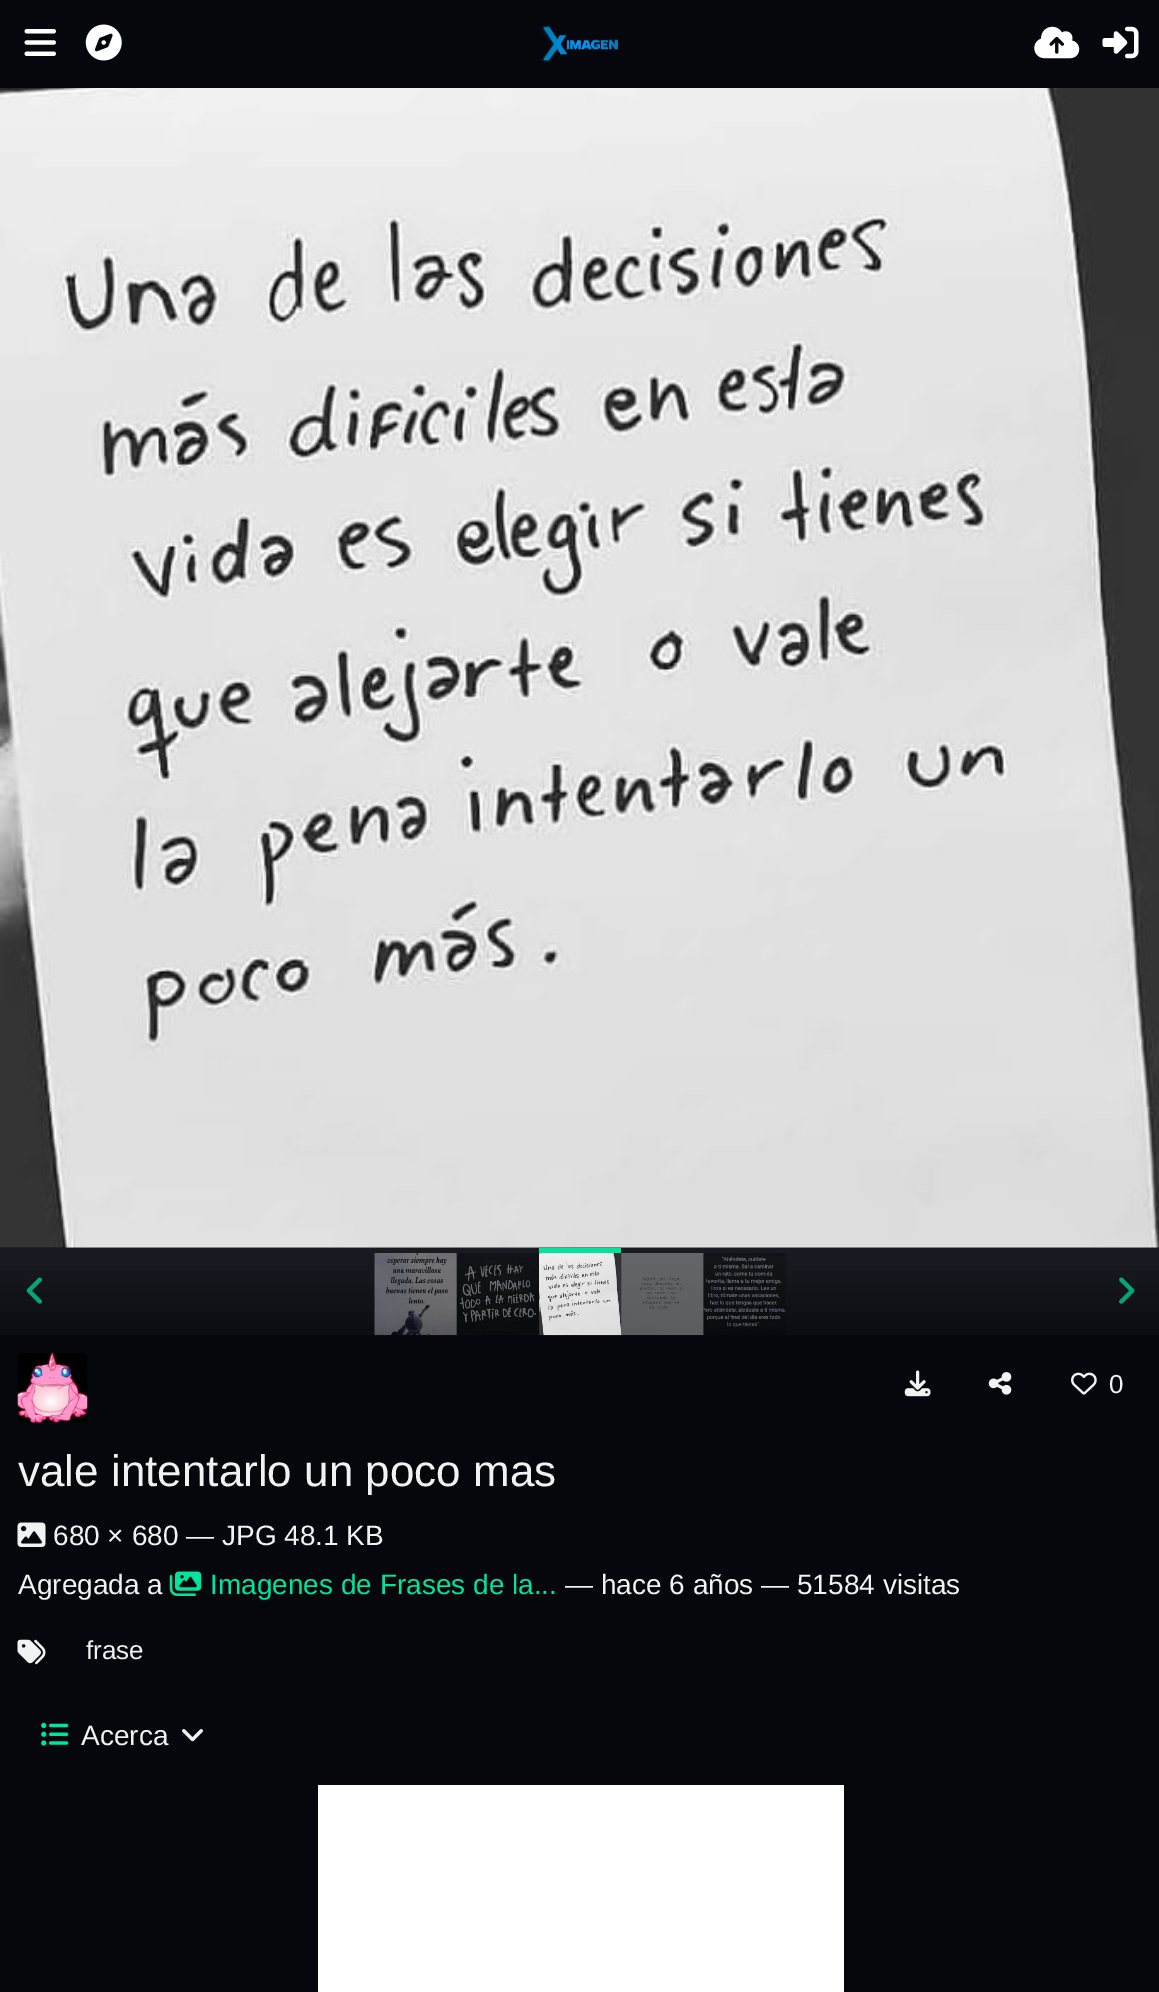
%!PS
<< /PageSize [1159 1992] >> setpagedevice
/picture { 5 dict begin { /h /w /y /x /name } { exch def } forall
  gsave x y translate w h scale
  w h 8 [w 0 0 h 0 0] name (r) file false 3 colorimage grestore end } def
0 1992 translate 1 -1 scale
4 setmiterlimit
0.024 0.027 0.051 setrgbcolor
0 0 1159 1992 rectfill
(img1.rgb) 24 29 32 27 picture
(img2.rgb) 85 24 37 37 picture
(img3.rgb) 541 26 77 36 picture
(img4.rgb) 1034 26 46 33 picture
(img5.rgb) 1102 26 37 33 picture
gsave newpath 0 1247 moveto 1159 1247 lineto 1159 1248 lineto 0 1248 lineto closepath clip newpath
<< /ShadingType 2 /ColorSpace /DeviceRGB /Coords [580 87 580 1248] /Extend [true true] /Function << /FunctionType 2 /Domain [0 1] /C0 [0.102 0.11 0.137] /C1 [0.043 0.051 0.071] /N 1 >> >> shfill grestore
(img6.rgb) 0 88 1159 1160 picture
gsave newpath 0 1248 moveto 1159 1248 lineto 1159 1335 lineto 0 1335 lineto closepath clip newpath
<< /ShadingType 2 /ColorSpace /DeviceRGB /Coords [580 1248 580 1335] /Extend [true true] /Function << /FunctionType 2 /Domain [0 1] /C0 [0.102 0.11 0.137] /C1 [0.043 0.051 0.071] /N 1 >> >> shfill grestore
(img7.rgb) 374 1253 83 83 picture
(img8.rgb) 456 1253 83 82 picture
0 0.898 0.608 setrgbcolor
539 1248 82 5 rectfill
(img9.rgb) 539 1253 83 83 picture
(img10.rgb) 621 1253 83 83 picture
(img11.rgb) 703 1253 83 82 picture
(img12.rgb) 26 1277 16 27 picture
(img13.rgb) 1119 1277 16 27 picture
(img14.rgb) 17 1352 71 71 picture
(img15.rgb) 904 1370 27 27 picture
(img16.rgb) 988 1372 24 23 picture
(img17.rgb) 1071 1372 26 23 picture
/LiberationSans-Regular [26 0 0 -26 0 0] selectfont
0.949 setgray
1109 1393 moveto (0) show
/LiberationSans-Regular [44 0 0 -44 0 0] selectfont
18 1486 moveto (vale intentarlo un poco mas) show
(img18.rgb) 17 1522 29 25 picture
/LiberationSans-Regular [28 0 0 -28 0 0] selectfont
53 1545 moveto (680 × 680 — JPG 48.1 KB) show
18 1594 moveto (Agregada a) show
(img19.rgb) 169 1571 33 25 picture
0 0.898 0.608 setrgbcolor
210 1594 moveto (Imagenes de Frases de la...) show
0.949 setgray
565 1594 moveto (— hace 6 años — 51584 visitas) show
(img20.rgb) 17 1639 29 26 picture
/LiberationSans-Regular [26 0 0 -26 0 0] selectfont
86 1659 moveto (frase) show
(img21.rgb) 41 1722 28 24 picture
/LiberationSans-Regular [28 0 0 -28 0 0] selectfont
81 1745 moveto (Acerca) show
(img22.rgb) 182 1729 21 13 picture
1 setgray
318 1785 526 207 rectfill
showpage
